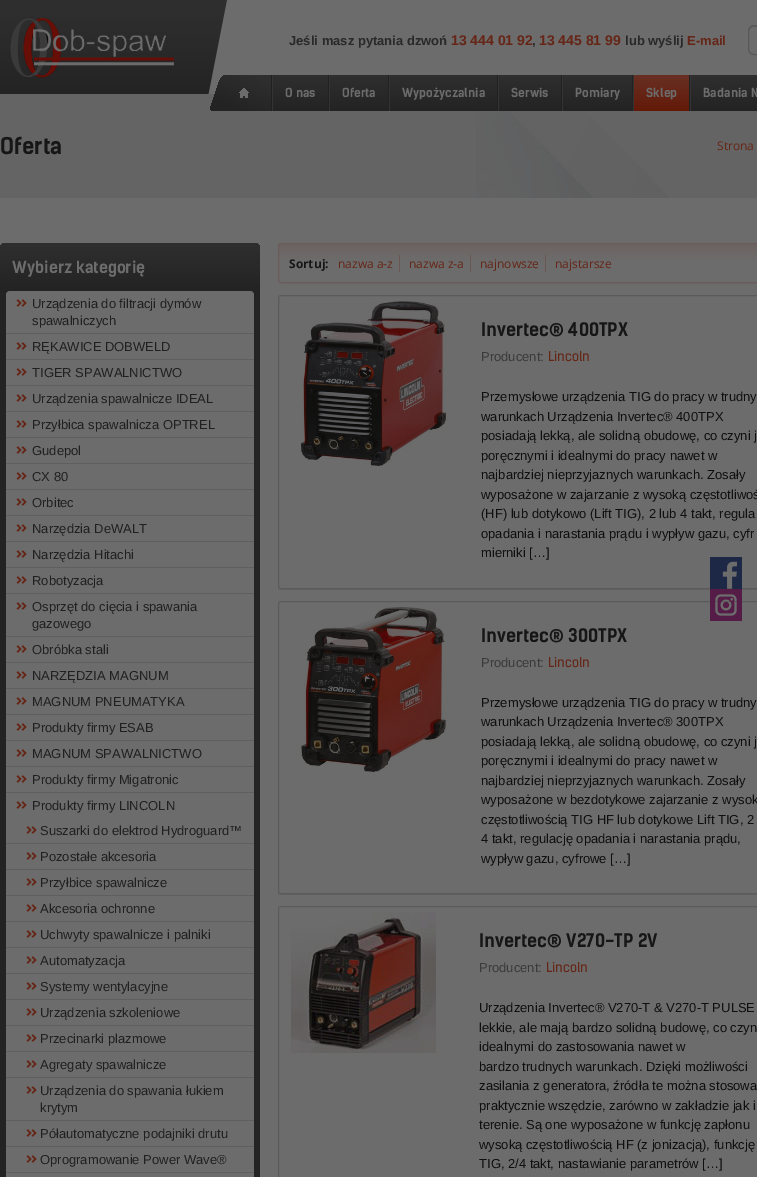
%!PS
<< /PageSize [757 1177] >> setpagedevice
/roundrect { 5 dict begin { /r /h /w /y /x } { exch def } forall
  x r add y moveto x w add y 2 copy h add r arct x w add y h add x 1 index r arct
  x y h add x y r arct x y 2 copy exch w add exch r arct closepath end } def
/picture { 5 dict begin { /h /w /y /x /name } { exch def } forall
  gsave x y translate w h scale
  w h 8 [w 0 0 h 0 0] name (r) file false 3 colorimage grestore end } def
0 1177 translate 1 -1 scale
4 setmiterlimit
0.424 setgray
0 0 757 1177 rectfill
(img1.rgb) 0 0 227 94 picture
/LiberationSans-Bold [13 0 0 -13 0 0] selectfont
0.161 setgray
289 45 moveto (Jeśli masz pytania dzwoń) show
/LiberationSans-Bold [14 0 0 -14 0 0] selectfont
0.4 0.149 0.09 setrgbcolor
451 45 moveto (13 444 01 92) show
/LiberationSans-Bold [13 0 0 -13 0 0] selectfont
0.161 setgray
532 45 moveto (,) show
/LiberationSans-Bold [14 0 0 -14 0 0] selectfont
0.4 0.149 0.09 setrgbcolor
539 45 moveto (13 445 81 99) show
/LiberationSans-Bold [13 0 0 -13 0 0] selectfont
0.161 setgray
625 45 moveto (lub wyślij) show
0.4 0.149 0.09 setrgbcolor
687 45 moveto (E-mail) show
0.369 setgray
newpath 754 27 moveto 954 27 lineto 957 27 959 29 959 32 curveto 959 31 lineto 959 28 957 26 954 26 curveto 754 26 lineto 751 26 749 28 749 31 curveto 749 32 lineto 749 29 751 27 754 27 curveto closepath fill
0.349 setgray
748.5 25.5 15 29 5.5 roundrect stroke
0.392 setgray
0 94 757 104 rectfill
gsave newpath 227 75 moveto 286 75 lineto 273 111 lineto 214 111 lineto 211 111 210 109 211 106 curveto 220 80 lineto 221 77 224 75 227 75 curveto closepath clip newpath
<< /ShadingType 2 /ColorSpace /DeviceRGB /Coords [254 75 241 111] /Extend [true true] /Function << /FunctionType 2 /Domain [0 1] /C0 [0.184 0.184 0.184] /C1 [0.137 0.137 0.137] /N 1 >> >> shfill grestore
(img2.rgb) 239 88 10 10 picture
0.125 setgray
271 75 1 36 rectfill
gsave newpath 273 75 moveto 328 75 lineto 328 111 lineto 273 111 lineto closepath clip newpath
<< /ShadingType 2 /ColorSpace /DeviceRGB /Coords [301 75 301 111] /Extend [true true] /Function << /FunctionType 2 /Domain [0 1] /C0 [0.184 0.184 0.184] /C1 [0.137 0.137 0.137] /N 1 >> >> shfill grestore
0.129 setgray
328 75 1 36 rectfill
0.204 setgray
272 75 1 36 rectfill
/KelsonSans-Bold [12 0 0 -12 0 0] selectfont
0.424 setgray
285 97 moveto (O nas) show
gsave newpath 330 75 moveto 388 75 lineto 388 111 lineto 330 111 lineto closepath clip newpath
<< /ShadingType 2 /ColorSpace /DeviceRGB /Coords [359 75 359 111] /Extend [true true] /Function << /FunctionType 2 /Domain [0 1] /C0 [0.184 0.184 0.184] /C1 [0.137 0.137 0.137] /N 1 >> >> shfill grestore
0.129 setgray
388 75 1 36 rectfill
0.204 setgray
329 75 1 36 rectfill
0.424 setgray
342 97 moveto (Oferta) show
gsave newpath 390 75 moveto 497 75 lineto 497 111 lineto 390 111 lineto closepath clip newpath
<< /ShadingType 2 /ColorSpace /DeviceRGB /Coords [444 75 444 111] /Extend [true true] /Function << /FunctionType 2 /Domain [0 1] /C0 [0.184 0.184 0.184] /C1 [0.137 0.137 0.137] /N 1 >> >> shfill grestore
0.129 setgray
497 75 1 36 rectfill
0.204 setgray
389 75 1 36 rectfill
0.424 setgray
402 97 moveto (Wypożyczalnia) show
gsave newpath 499 75 moveto 561 75 lineto 561 111 lineto 499 111 lineto closepath clip newpath
<< /ShadingType 2 /ColorSpace /DeviceRGB /Coords [530 75 530 111] /Extend [true true] /Function << /FunctionType 2 /Domain [0 1] /C0 [0.184 0.184 0.184] /C1 [0.137 0.137 0.137] /N 1 >> >> shfill grestore
0.129 setgray
561 75 1 36 rectfill
0.204 setgray
498 75 1 36 rectfill
0.424 setgray
511 97 moveto (Serwis) show
gsave newpath 563 75 moveto 632 75 lineto 632 111 lineto 563 111 lineto closepath clip newpath
<< /ShadingType 2 /ColorSpace /DeviceRGB /Coords [598 75 598 111] /Extend [true true] /Function << /FunctionType 2 /Domain [0 1] /C0 [0.184 0.184 0.184] /C1 [0.137 0.137 0.137] /N 1 >> >> shfill grestore
0.129 setgray
632 75 1 36 rectfill
0.204 setgray
562 75 1 36 rectfill
0.424 setgray
575 97 moveto (Pomiary) show
0.129 setgray
689 75 1 36 rectfill
0.204 setgray
633 75 1 36 rectfill
gsave newpath 634 75 moveto 689 75 lineto 689 111 lineto 634 111 lineto closepath clip newpath
<< /ShadingType 2 /ColorSpace /DeviceRGB /Coords [662 75 662 111] /Extend [true true] /Function << /FunctionType 2 /Domain [0 1] /C0 [0.408 0.188 0.137] /C1 [0.388 0.098 0.031] /N 1 >> >> shfill grestore
0.424 setgray
646 97 moveto (Sklep) show
gsave newpath 691 75 moveto 757 75 lineto 757 111 lineto 691 111 lineto closepath clip newpath
<< /ShadingType 2 /ColorSpace /DeviceRGB /Coords [738 75 738 111] /Extend [true true] /Function << /FunctionType 2 /Domain [0 1] /C0 [0.184 0.184 0.184] /C1 [0.137 0.137 0.137] /N 1 >> >> shfill grestore
0.204 setgray
690 75 1 36 rectfill
0.424 setgray
703 97 moveto (Badania N) show
(img3.rgb) 476 111 193 87 picture
/KelsonSans-Bold [22 0 0 -22 0 0] selectfont
0.086 setgray
0 154 moveto (Oferta) show
/OpenSans-Regular [12 0 0 -12 0 0] selectfont
0.4 0.149 0.09 setrgbcolor
717 150 moveto (Strona) show
0.137 setgray
0 243 260 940 6 roundrect fill
gsave newpath 6 243 moveto 254 243 lineto 257.5 243 260 245.5 260 249 curveto 260 291 lineto 0 291 lineto 0 249 lineto 0 245.5 2.5 243 6 243 curveto closepath clip newpath
<< /ShadingType 2 /ColorSpace /DeviceRGB /Coords [130 243 130 291] /Extend [true true] /Function << /FunctionType 3 /Domain [0 1] /Functions [<< /FunctionType 2 /Domain [0 1] /C0 [0.184 0.184 0.184] /C1 [0.137 0.137 0.137] /N 1 >> << /FunctionType 2 /Domain [0 1] /C0 [0.137 0.137 0.137] /C1 [0.137 0.137 0.137] /N 1 >>] /Bounds [0.97] /Encode [0 1 0 1] >> >> shfill grestore
/KelsonSans-Bold [16 0 0 -16 0 0] selectfont
0.424 setgray
12 273 moveto (Wybierz kategorię) show
6 291 248 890 4 roundrect fill
(img4.rgb) 16 299 11 8 picture
0.373 setgray
6 333 248 1 rectfill
/LiberationSans-Regular [13 0 0 -13 0 0] selectfont
0.125 setgray
32 308 moveto (Urządzenia do filtracji dymów) show
32 325 moveto (spawalniczych) show
(img4.rgb) 16 342 11 8 picture
0.373 setgray
6 359 248 1 rectfill
0.125 setgray
32 351 moveto (RĘKAWICE DOBWELD) show
(img4.rgb) 16 368 11 8 picture
0.373 setgray
6 385 248 1 rectfill
0.125 setgray
32 377 moveto (TIGER SPAWALNICTWO) show
(img4.rgb) 16 394 11 8 picture
0.373 setgray
6 411 248 1 rectfill
0.125 setgray
32 403 moveto (Urządzenia spawalnicze IDEAL) show
(img4.rgb) 16 420 11 8 picture
0.373 setgray
6 437 248 1 rectfill
0.125 setgray
32 429 moveto (Przyłbica spawalnicza OPTREL) show
(img4.rgb) 16 446 11 8 picture
0.373 setgray
6 463 248 1 rectfill
0.125 setgray
32 455 moveto (Gudepol) show
(img4.rgb) 16 472 11 8 picture
0.373 setgray
6 489 248 1 rectfill
0.125 setgray
32 481 moveto (CX 80) show
(img4.rgb) 16 498 11 8 picture
0.373 setgray
6 515 248 1 rectfill
0.125 setgray
32 507 moveto (Orbitec) show
(img4.rgb) 16 524 11 8 picture
0.373 setgray
6 541 248 1 rectfill
0.125 setgray
32 533 moveto (Narzędzia DeWALT) show
(img4.rgb) 16 550 11 8 picture
0.373 setgray
6 567 248 1 rectfill
0.125 setgray
32 559 moveto (Narzędzia Hitachi) show
(img4.rgb) 16 576 11 8 picture
0.373 setgray
6 593 248 1 rectfill
0.125 setgray
32 585 moveto (Robotyzacja) show
(img4.rgb) 16 602 11 8 picture
0.373 setgray
6 636 248 1 rectfill
0.125 setgray
32 611 moveto (Osprzęt do cięcia i spawania) show
32 628 moveto (gazowego) show
(img4.rgb) 16 645 11 8 picture
0.373 setgray
6 662 248 1 rectfill
0.125 setgray
32 654 moveto (Obróbka stali) show
(img4.rgb) 16 671 11 8 picture
0.373 setgray
6 688 248 1 rectfill
0.125 setgray
32 680 moveto (NARZĘDZIA MAGNUM) show
(img4.rgb) 16 697 11 8 picture
0.373 setgray
6 714 248 1 rectfill
0.125 setgray
32 706 moveto (MAGNUM PNEUMATYKA) show
(img4.rgb) 16 723 11 8 picture
0.373 setgray
6 740 248 1 rectfill
0.125 setgray
32 732 moveto (Produkty firmy ESAB) show
(img4.rgb) 16 749 11 8 picture
0.373 setgray
6 766 248 1 rectfill
0.125 setgray
32 758 moveto (MAGNUM SPAWALNICTWO) show
(img4.rgb) 16 775 11 8 picture
0.373 setgray
6 792 248 1 rectfill
0.125 setgray
32 784 moveto (Produkty firmy Migatronic) show
(img4.rgb) 16 801 11 8 picture
32 810 moveto (Produkty firmy LINCOLN) show
(img4.rgb) 26 826 11 8 picture
0.373 setgray
6 843 248 1 rectfill
0.125 setgray
40 835 moveto (Suszarki do elektrod Hydroguard™) show
(img4.rgb) 26 852 11 8 picture
0.373 setgray
6 869 248 1 rectfill
0.125 setgray
40 861 moveto (Pozostałe akcesoria) show
(img4.rgb) 26 878 11 8 picture
0.373 setgray
6 895 248 1 rectfill
0.125 setgray
40 887 moveto (Przyłbice spawalnicze) show
(img4.rgb) 26 904 11 8 picture
0.373 setgray
6 921 248 1 rectfill
0.125 setgray
40 913 moveto (Akcesoria ochronne) show
(img4.rgb) 26 930 11 8 picture
0.373 setgray
6 947 248 1 rectfill
0.125 setgray
40 939 moveto (Uchwyty spawalnicze i palniki) show
(img4.rgb) 26 956 11 8 picture
0.373 setgray
6 973 248 1 rectfill
0.125 setgray
40 965 moveto (Automatyzacja) show
(img4.rgb) 26 982 11 8 picture
0.373 setgray
6 999 248 1 rectfill
0.125 setgray
40 991 moveto (Systemy wentylacyjne) show
(img4.rgb) 26 1008 11 8 picture
0.373 setgray
6 1025 248 1 rectfill
0.125 setgray
40 1017 moveto (Urządzenia szkoleniowe) show
(img4.rgb) 26 1034 11 8 picture
0.373 setgray
6 1051 248 1 rectfill
0.125 setgray
40 1043 moveto (Przecinarki plazmowe) show
(img4.rgb) 26 1060 11 8 picture
0.373 setgray
6 1077 248 1 rectfill
0.125 setgray
40 1069 moveto (Agregaty spawalnicze) show
(img4.rgb) 26 1086 11 8 picture
0.373 setgray
6 1120 248 1 rectfill
0.125 setgray
40 1095 moveto (Urządzenia do spawania łukiem) show
40 1112 moveto (krytym) show
(img4.rgb) 26 1129 11 8 picture
0.373 setgray
6 1146 248 1 rectfill
0.125 setgray
40 1138 moveto (Półautomatyczne podajniki drutu) show
(img4.rgb) 26 1155 11 8 picture
0.373 setgray
6 1172 248 1 rectfill
0.125 setgray
40 1164 moveto (Oprogramowanie Power Wave®) show
0.42 0.408 0.408 setrgbcolor
newpath 279 283 moveto 280 283 281 284 282 284 curveto 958 284 lineto 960 284 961 283 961 281 curveto 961 247 lineto 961 246 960 245 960 244 curveto 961 247 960 275 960 280 curveto 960 282 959 283 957 283 curveto 281 283 lineto closepath fill
gsave
278 243 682 40 3 roundrect clip newpath
gsave newpath 278 244 moveto 757 244 lineto 757 282 lineto 278 282 lineto closepath clip newpath
<< /ShadingType 2 /ColorSpace /DeviceRGB /Coords [619 244 619 282] /Extend [true true] /Function << /FunctionType 3 /Domain [0 1] /Functions [<< /FunctionType 2 /Domain [0 1] /C0 [0.424 0.388 0.38] /C1 [0.424 0.424 0.424] /N 1 >> << /FunctionType 2 /Domain [0 1] /C0 [0.424 0.424 0.424] /C1 [0.424 0.424 0.424] /N 1 >>] /Bounds [0.45] /Encode [0 1 0 1] >> >> shfill grestore
grestore
0.416 0.361 0.353 setrgbcolor
278.5 243.5 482 39 2.5 roundrect stroke
/OpenSans-Bold [12 0 0 -12 0 0] selectfont
0.086 setgray
289 268 moveto (Sortuj:) show
/OpenSans-Regular [12 0 0 -12 0 0] selectfont
0.4 0.149 0.09 setrgbcolor
338 268 moveto (nazwa a-z) show
0.416 0.341 0.322 setrgbcolor
399 255 1 17 rectfill
0.4 0.149 0.09 setrgbcolor
409 268 moveto (nazwa z-a) show
0.416 0.341 0.322 setrgbcolor
470 255 1 17 rectfill
0.4 0.149 0.09 setrgbcolor
480 268 moveto (najnowsze) show
0.416 0.341 0.322 setrgbcolor
545 255 1 17 rectfill
0.4 0.149 0.09 setrgbcolor
555 268 moveto (najstarsze) show
0.384 setgray
newpath 278 586 moveto 278 587 lineto 278 589 279 590 281 590 curveto 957 590 lineto 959 590 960 589 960 587 curveto 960 586 lineto 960 588 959 589 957 589 curveto 281 589 lineto 279 589 278 588 278 586 curveto closepath fill
0.357 setgray
278.5 295.5 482 293 2.5 roundrect stroke
(img5.rgb) 300 301 147 165 picture
/KelsonSans-Bold [18 0 0 -18 0 0] selectfont
0.086 setgray
481 336 moveto (Invertec® 400TPX) show
/LiberationSans-Regular [13 0 0 -13 0 0] selectfont
0.227 setgray
481 361 moveto (Producent:) show
/KelsonSans-Regular [13 0 0 -13 0 0] selectfont
0.4 0.149 0.09 setrgbcolor
548 361 moveto (Lincoln) show
/LiberationSans-Regular [13 0 0 -13 0 0] selectfont
0.063 0.059 0.059 setrgbcolor
481 401 moveto (Przemysłowe urządzenia TIG do pracy w trudny) show
481 421 moveto (warunkach Urządzenia Invertec® 400TPX) show
481 440 moveto (posiadają lekką, ale solidną obudowę, co czyni j) show
481 460 moveto (poręcznymi i idealnymi do pracy nawet w) show
481 479 moveto (najbardziej nieprzyjaznych warunkach. Zosały) show
481 499 moveto (wyposażone w zajarzanie z wysoką częstotliwoś) show
481 518 moveto (\(HF\) lub dotykowo \(Lift TIG\), 2 lub 4 takt, regula) show
481 538 moveto (opadania i narastania prądu i wypływ gazu, cyfr) show
481 557 moveto (mierniki […]) show
0.384 setgray
newpath 278 891 moveto 278 892 lineto 278 894 279 895 281 895 curveto 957 895 lineto 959 895 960 894 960 892 curveto 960 891 lineto 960 893 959 894 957 894 curveto 281 894 lineto 279 894 278 893 278 891 curveto closepath fill
0.357 setgray
278.5 601.5 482 292 2.5 roundrect stroke
(img6.rgb) 300 607 148 165 picture
/KelsonSans-Bold [18 0 0 -18 0 0] selectfont
0.086 setgray
481 642 moveto (Invertec® 300TPX) show
/LiberationSans-Regular [13 0 0 -13 0 0] selectfont
0.227 setgray
481 667 moveto (Producent:) show
/KelsonSans-Regular [13 0 0 -13 0 0] selectfont
0.4 0.149 0.09 setrgbcolor
548 667 moveto (Lincoln) show
/LiberationSans-Regular [13 0 0 -13 0 0] selectfont
0.063 0.059 0.059 setrgbcolor
481 707 moveto (Przemysłowe urządzenia TIG do pracy w trudny) show
481 726 moveto (warunkach Urządzenia Invertec® 300TPX) show
481 746 moveto (posiadają lekką, ale solidną obudowę, co czyni j) show
481 765 moveto (poręcznymi i idealnymi do pracy nawet w) show
481 785 moveto (najbardziej nieprzyjaznych warunkach. Zosały) show
481 804 moveto (wyposażone w bezdotykowe zajarzanie z wysok) show
481 824 moveto (częstotliwością TIG HF lub dotykowe Lift TIG, 2) show
481 843 moveto (4 takt, regulację opadania i narastania prądu,) show
481 863 moveto (wypływ gazu, cyfrowe […]) show
0.357 setgray
278.5 906.5 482 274 2.5 roundrect stroke
(img7.rgb) 291 912 145 141 picture
/KelsonSans-Bold [18 0 0 -18 0 0] selectfont
0.086 setgray
479 947 moveto (Invertec® V270-TP 2V) show
/LiberationSans-Regular [13 0 0 -13 0 0] selectfont
0.227 setgray
479 972 moveto (Producent:) show
/KelsonSans-Regular [13 0 0 -13 0 0] selectfont
0.4 0.149 0.09 setrgbcolor
546 972 moveto (Lincoln) show
/LiberationSans-Regular [13 0 0 -13 0 0] selectfont
0.063 0.059 0.059 setrgbcolor
479 1012 moveto (Urządzenia Invertec® V270-T & V270-T PULSE) show
479 1032 moveto (lekkie, ale mają bardzo solidną budowę, co czyn) show
479 1051 moveto (idealnymi do zastosowania nawet w) show
479 1071 moveto (bardzo trudnych warunkach. Dzięki możliwości) show
479 1090 moveto (zasilania z generatora, źródła te można stosowa) show
479 1110 moveto (praktycznie wszędzie, zarówno w zakładzie jak i) show
479 1129 moveto (terenie. Są one wyposażone w funkcję zapłonu) show
479 1149 moveto (wysoką częstotliwością HF \(z jonizacją\), funkcję) show
479 1168 moveto (TIG, 2/4 takt, nastawianie parametrów […]) show
(img8.rgb) 710 557 32 32 picture
(img9.rgb) 710 589 32 32 picture
showpage
